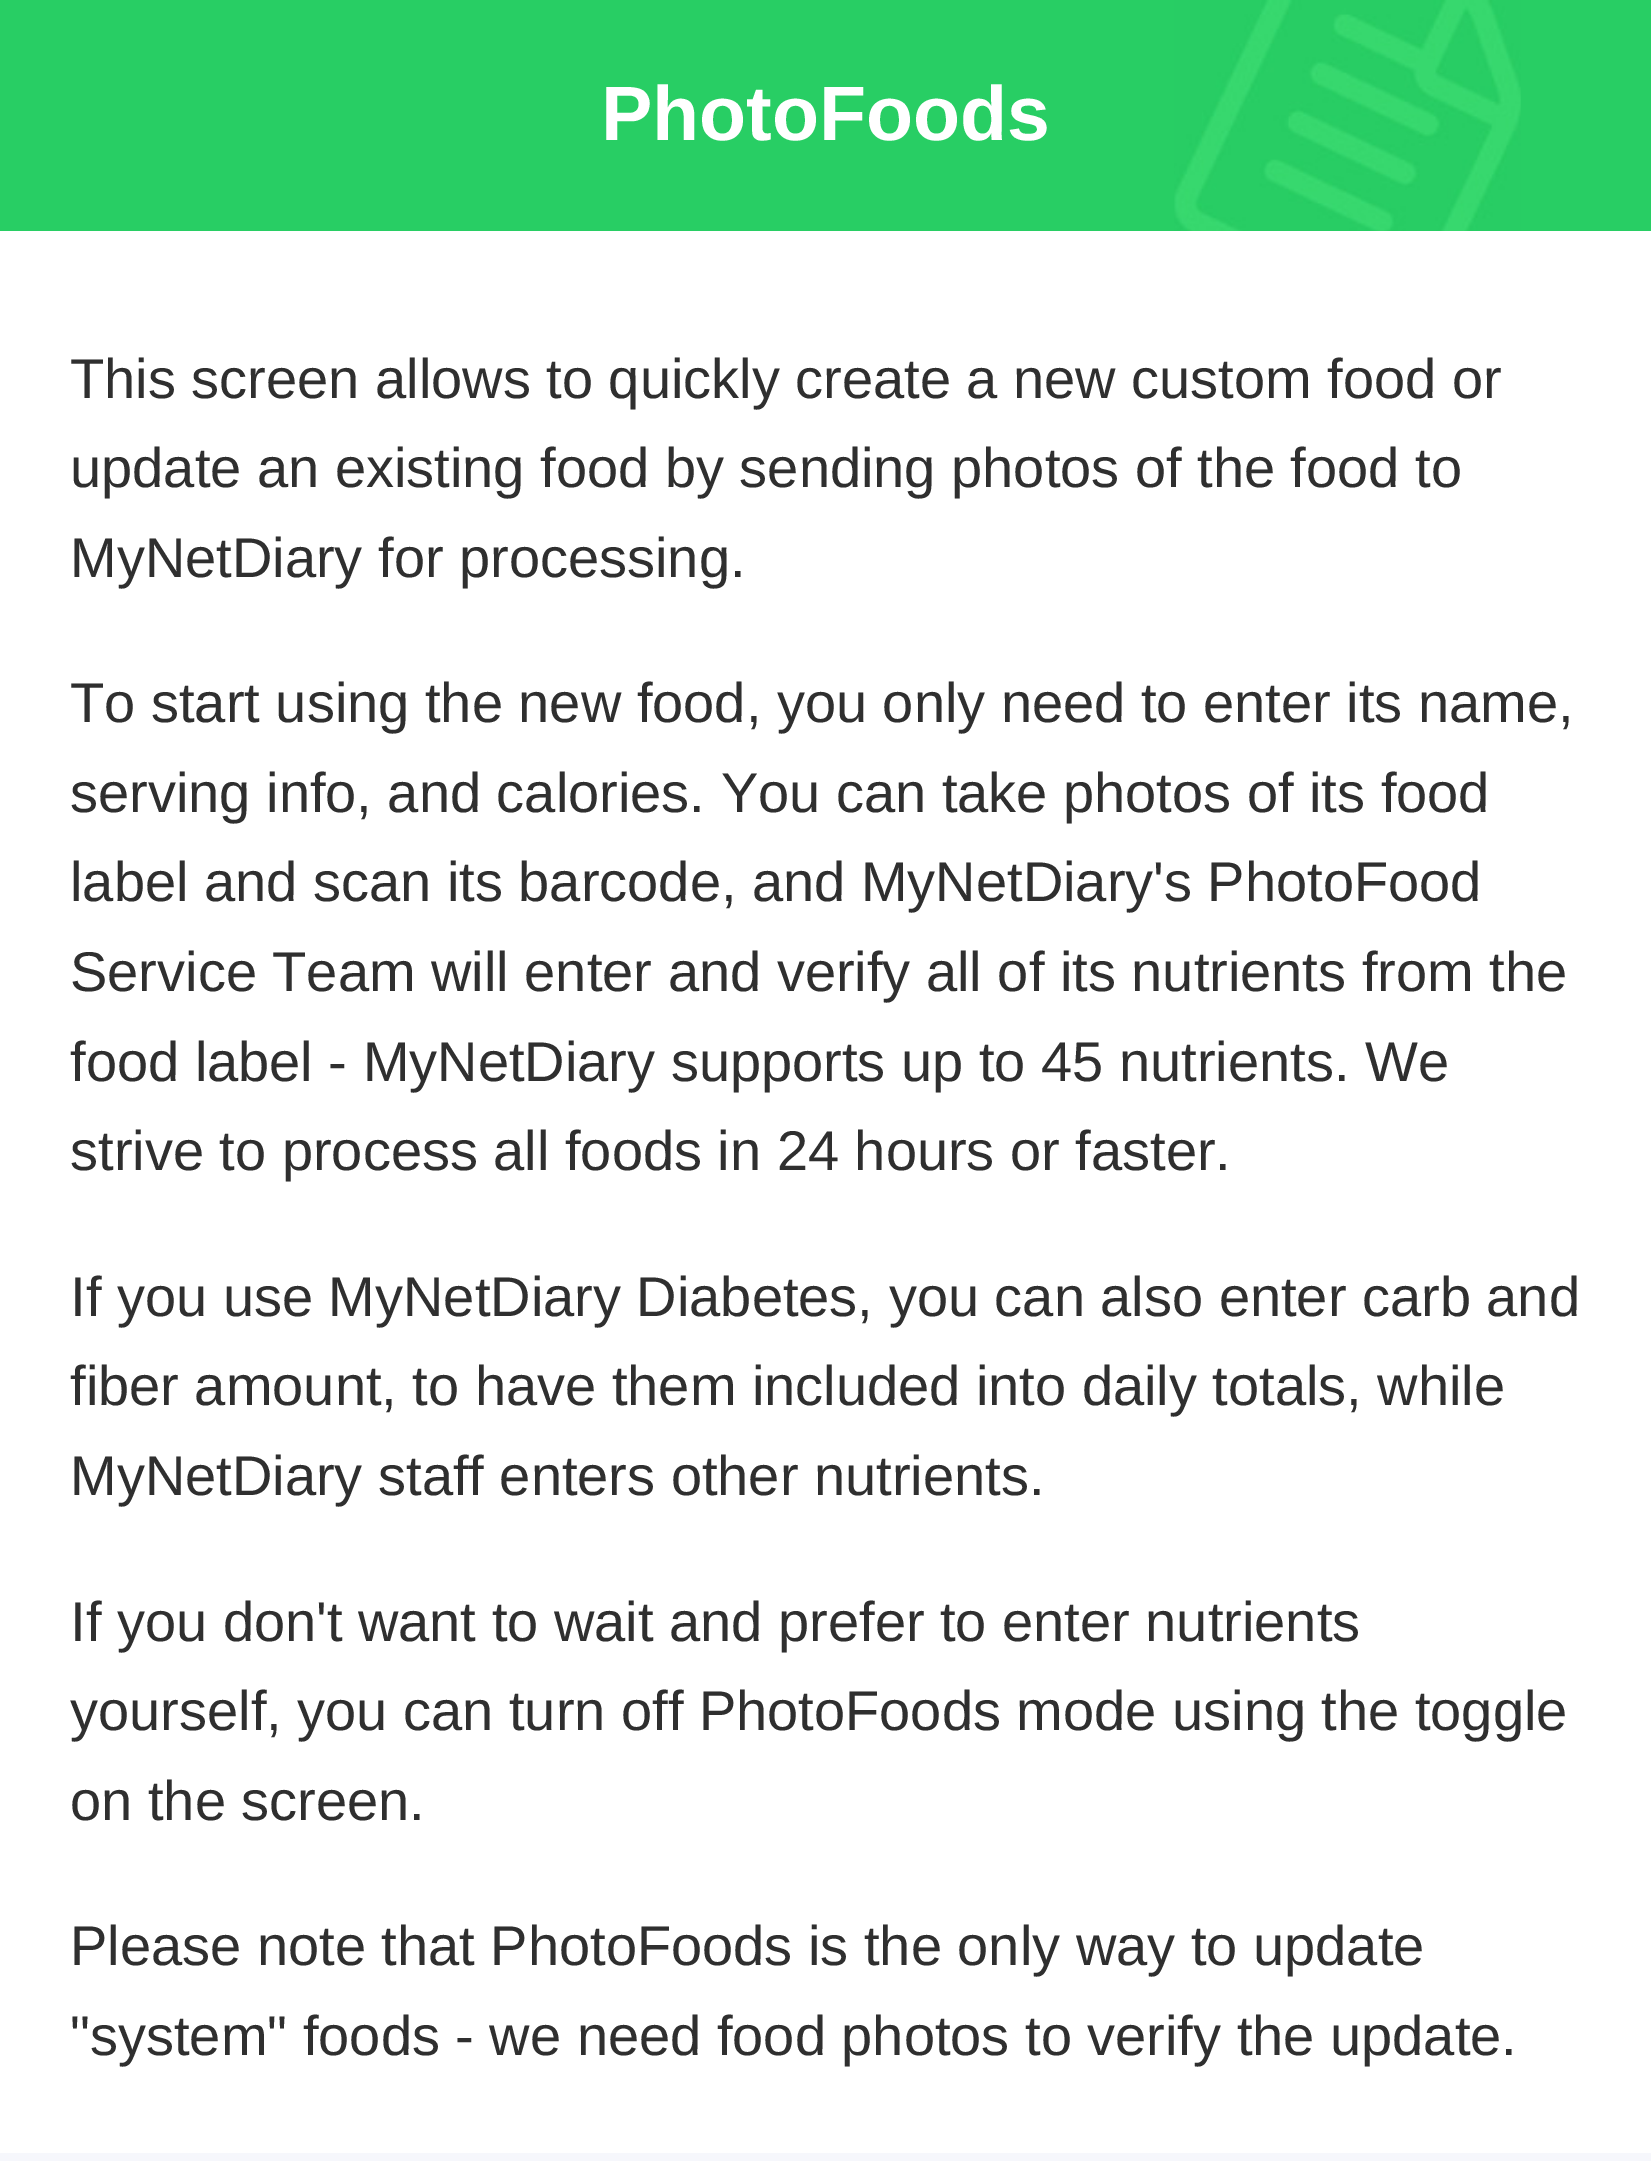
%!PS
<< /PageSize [1651 2161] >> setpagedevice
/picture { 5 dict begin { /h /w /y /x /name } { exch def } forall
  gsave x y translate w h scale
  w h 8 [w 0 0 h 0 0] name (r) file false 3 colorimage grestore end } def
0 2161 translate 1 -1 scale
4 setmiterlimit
1 setgray
0 0 1651 2161 rectfill
0.157 0.808 0.392 setrgbcolor
0 0 1651 231 rectfill
(img1.rgb) 1174 0 347 231 picture
/LiberationSans-Bold [77 0 0 -77 0 0] selectfont
1 setgray
601 140 moveto (PhotoFoods) show
/LiberationSans-Regular [56 0 0 -56 0 0] selectfont
0.184 setgray
70 398 moveto (This screen allows to quickly create a new custom food or) show
70 487 moveto (update an existing food by sending photos of the food to) show
70 577 moveto (MyNetDiary for processing.) show
70 722 moveto (To start using the new food, you only need to enter its name,) show
70 812 moveto (serving info, and calories. You can take photos of its food) show
70 901 moveto (label and scan its barcode, and MyNetDiary's PhotoFood) show
70 991 moveto (Service Team will enter and verify all of its nutrients from the) show
70 1081 moveto (food label - MyNetDiary supports up to 45 nutrients. We) show
70 1170 moveto (strive to process all foods in 24 hours or faster.) show
70 1316 moveto (If you use MyNetDiary Diabetes, you can also enter carb and) show
70 1405 moveto (fiber amount, to have them included into daily totals, while) show
70 1495 moveto (MyNetDiary staff enters other nutrients.) show
70 1641 moveto (If you don't want to wait and prefer to enter nutrients) show
70 1730 moveto (yourself, you can turn off PhotoFoods mode using the toggle) show
70 1820 moveto (on the screen.) show
70 1965 moveto (Please note that PhotoFoods is the only way to update) show
70 2055 moveto ("system" foods - we need food photos to verify the update.) show
0.965 0.969 0.988 setrgbcolor
0 2153 1651 8 rectfill
showpage
